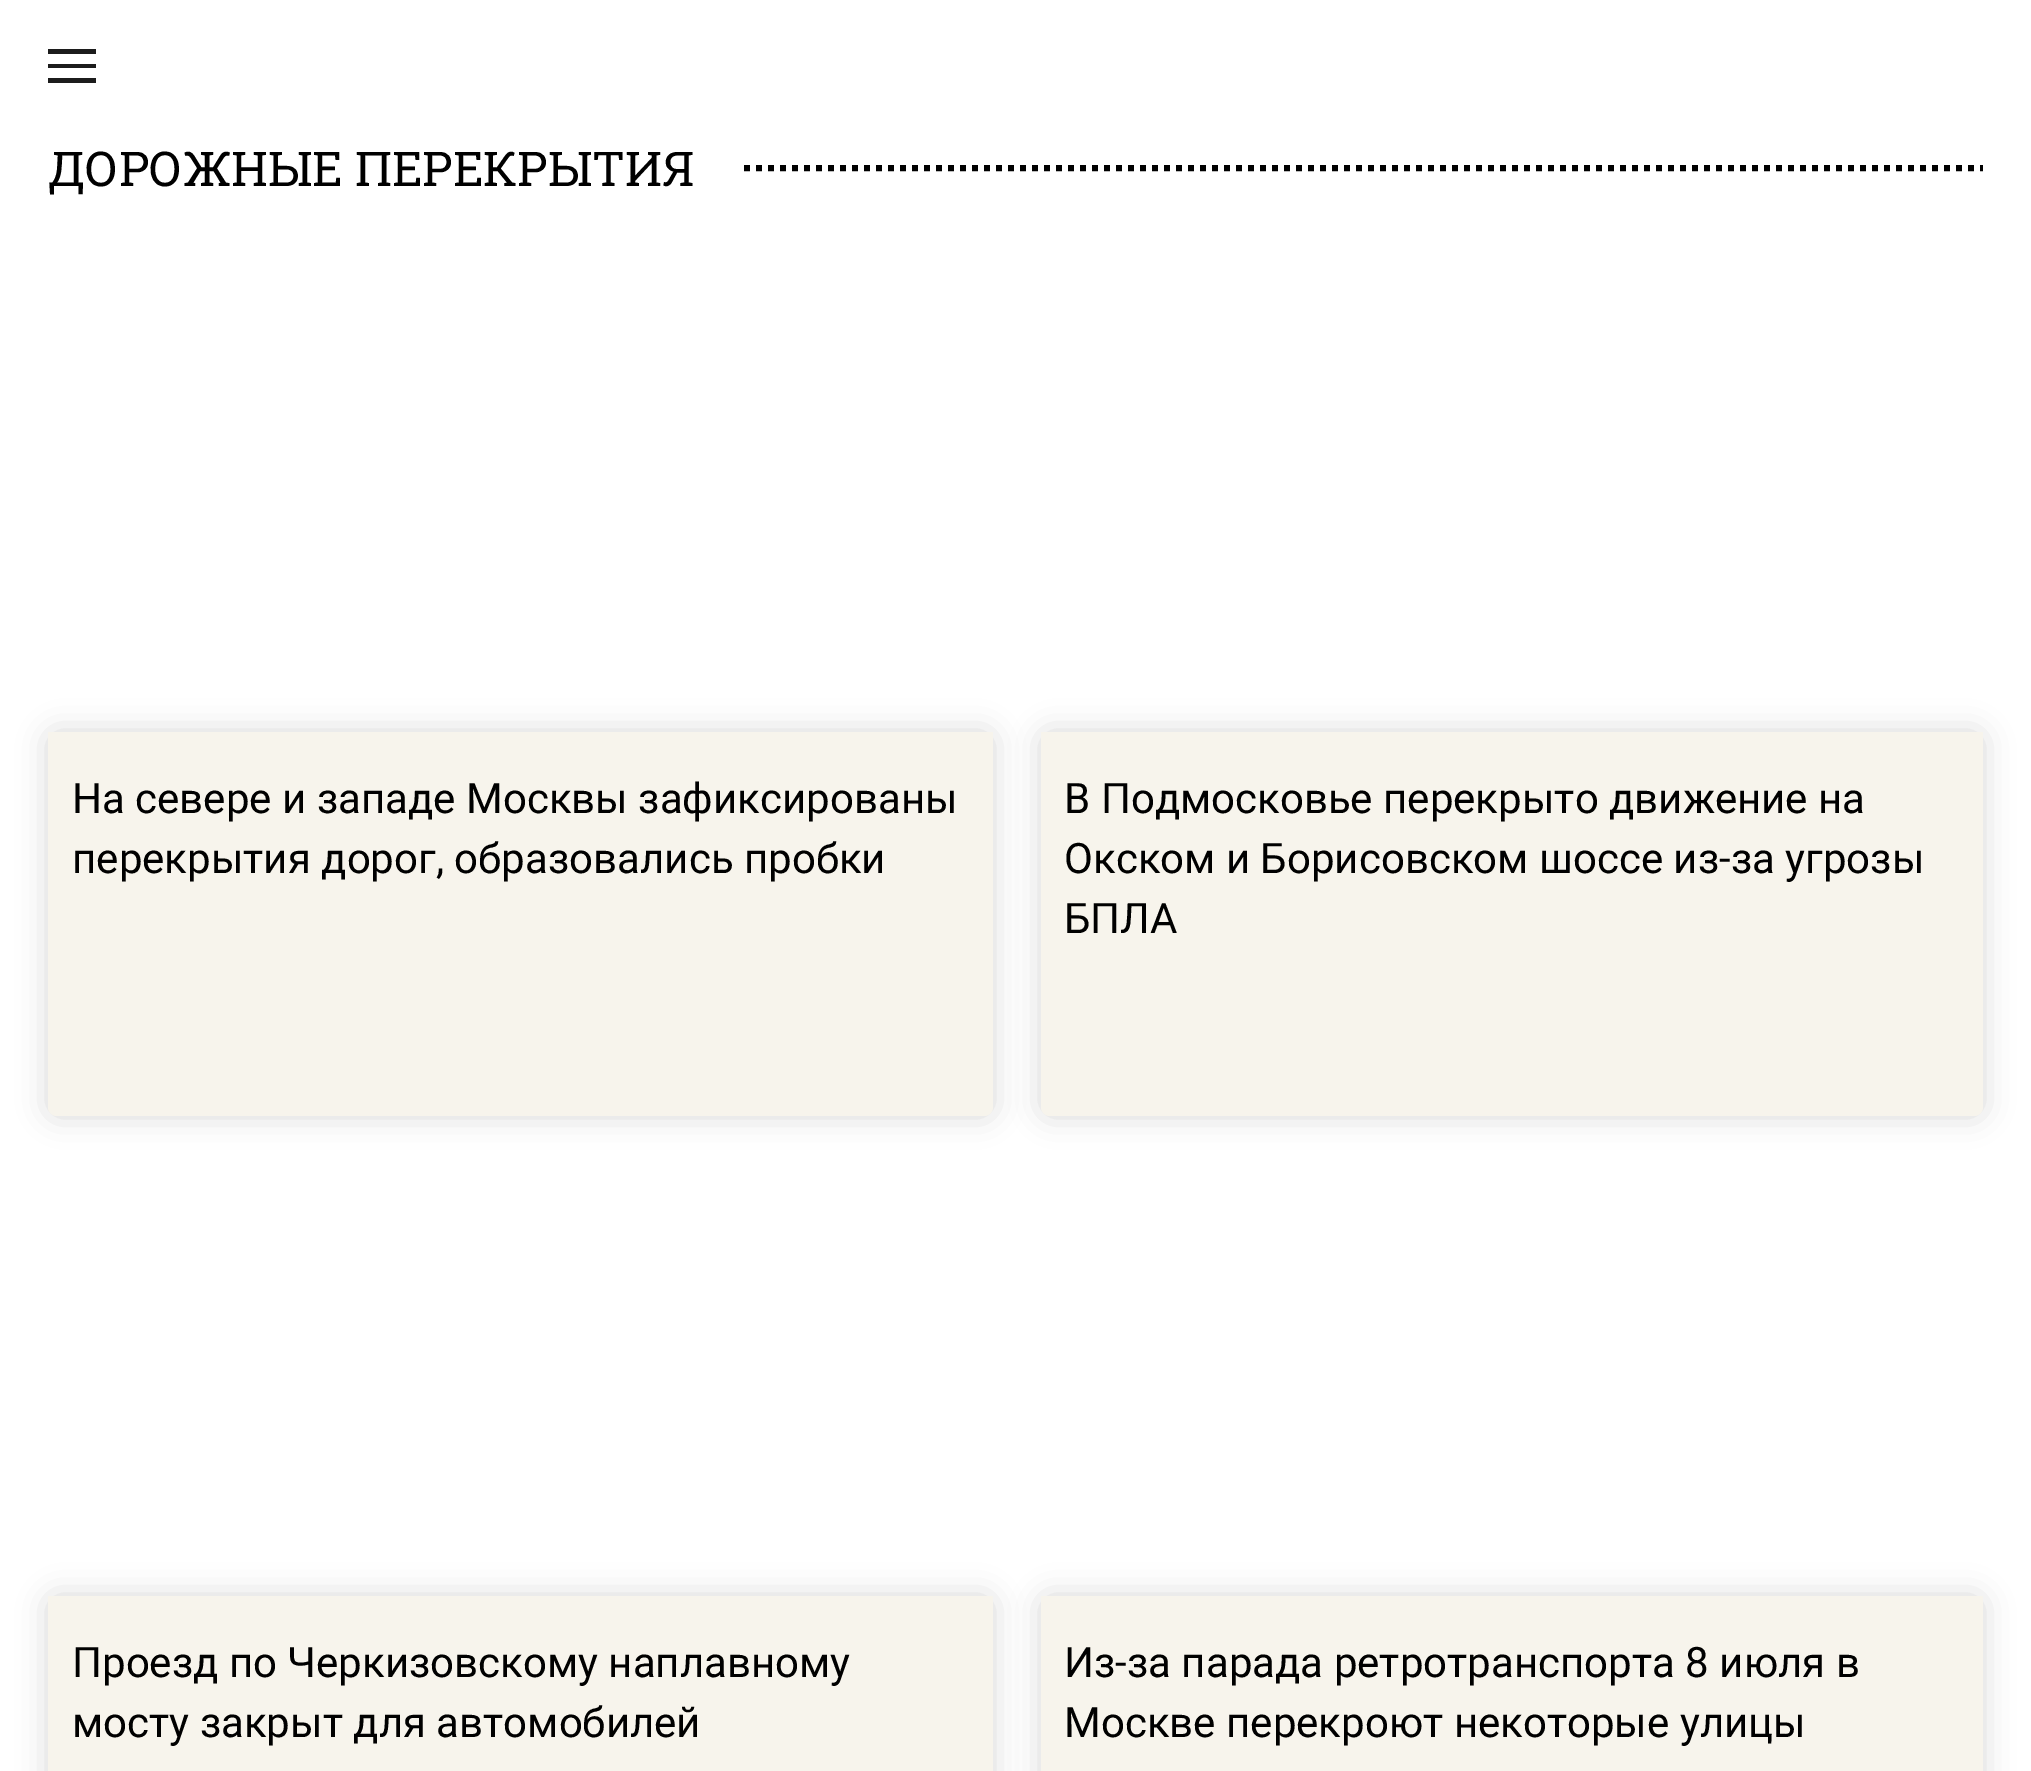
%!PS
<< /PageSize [2031 1771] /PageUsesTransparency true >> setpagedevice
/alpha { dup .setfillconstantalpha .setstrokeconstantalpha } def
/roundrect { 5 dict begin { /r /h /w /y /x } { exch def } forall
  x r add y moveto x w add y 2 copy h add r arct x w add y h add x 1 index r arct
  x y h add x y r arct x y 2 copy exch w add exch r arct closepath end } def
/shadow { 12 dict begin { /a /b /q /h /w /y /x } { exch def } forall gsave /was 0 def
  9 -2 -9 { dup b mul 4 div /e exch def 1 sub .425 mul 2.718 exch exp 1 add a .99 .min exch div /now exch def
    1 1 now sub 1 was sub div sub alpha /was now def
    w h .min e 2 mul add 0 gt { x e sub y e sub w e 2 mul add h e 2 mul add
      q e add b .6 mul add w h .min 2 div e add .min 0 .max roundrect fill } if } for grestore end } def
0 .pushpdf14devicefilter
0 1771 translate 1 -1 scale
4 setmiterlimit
1 setgray
0 0 2031 1771 rectfill
0.11 setgray
newpath 48 49 moveto 96 49 lineto 96 54 lineto 48 54 lineto closepath 48 64 moveto 96 64 lineto 96 68 lineto 48 68 lineto closepath 48 78 moveto 96 78 lineto 96 83 lineto 48 83 lineto closepath fill
/RobotoSlab-Regular [48 0 0 -48 0 0] selectfont
0 setgray
48 186 moveto (ДОРОЖНЫЕ ПЕРЕКРЫТИЯ) show
6 setlinewidth
[6 6] 0 setdash
newpath 744 168 moveto 1983 168 lineto stroke
48 732 945 384 9 15 0.15 shadow
0.969 0.957 0.925 setrgbcolor
newpath 48 732 moveto 993 732 lineto 993 1107 lineto 993 1112 989 1116 984 1116 curveto 57 1116 lineto 52 1116 48 1112 48 1107 curveto closepath fill
/Roboto-Regular [42 0 0 -42 0 0] selectfont
0 setgray
72 813 moveto (На севере и западе Москвы зафиксированы) show
72 873 moveto (перекрытия дорог, образовались пробки) show
1041 732 942 384 9 15 0.15 shadow
0.969 0.957 0.925 setrgbcolor
newpath 1041 732 moveto 1983 732 lineto 1983 1107 lineto 1983 1112 1979 1116 1974 1116 curveto 1050 1116 lineto 1045 1116 1041 1112 1041 1107 curveto closepath fill
0 setgray
1064 813 moveto (В Подмосковье перекрыто движение на) show
1064 873 moveto (Окском и Борисовском шоссе из-за угрозы) show
1064 933 moveto (БПЛА) show
48 1596 945 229 9 15 0.15 shadow
0.969 0.957 0.925 setrgbcolor
48 1596 945 175 rectfill
0 setgray
72 1677 moveto (Проезд по Черкизовскому наплавному) show
72 1737 moveto (мосту закрыт для автомобилей) show
1041 1596 942 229 9 15 0.15 shadow
0.969 0.957 0.925 setrgbcolor
1041 1596 942 175 rectfill
0 setgray
1064 1677 moveto (Из-за парада ретротранспорта 8 июля в) show
1064 1737 moveto (Москве перекроют некоторые улицы) show
.poppdf14devicefilter showpage
